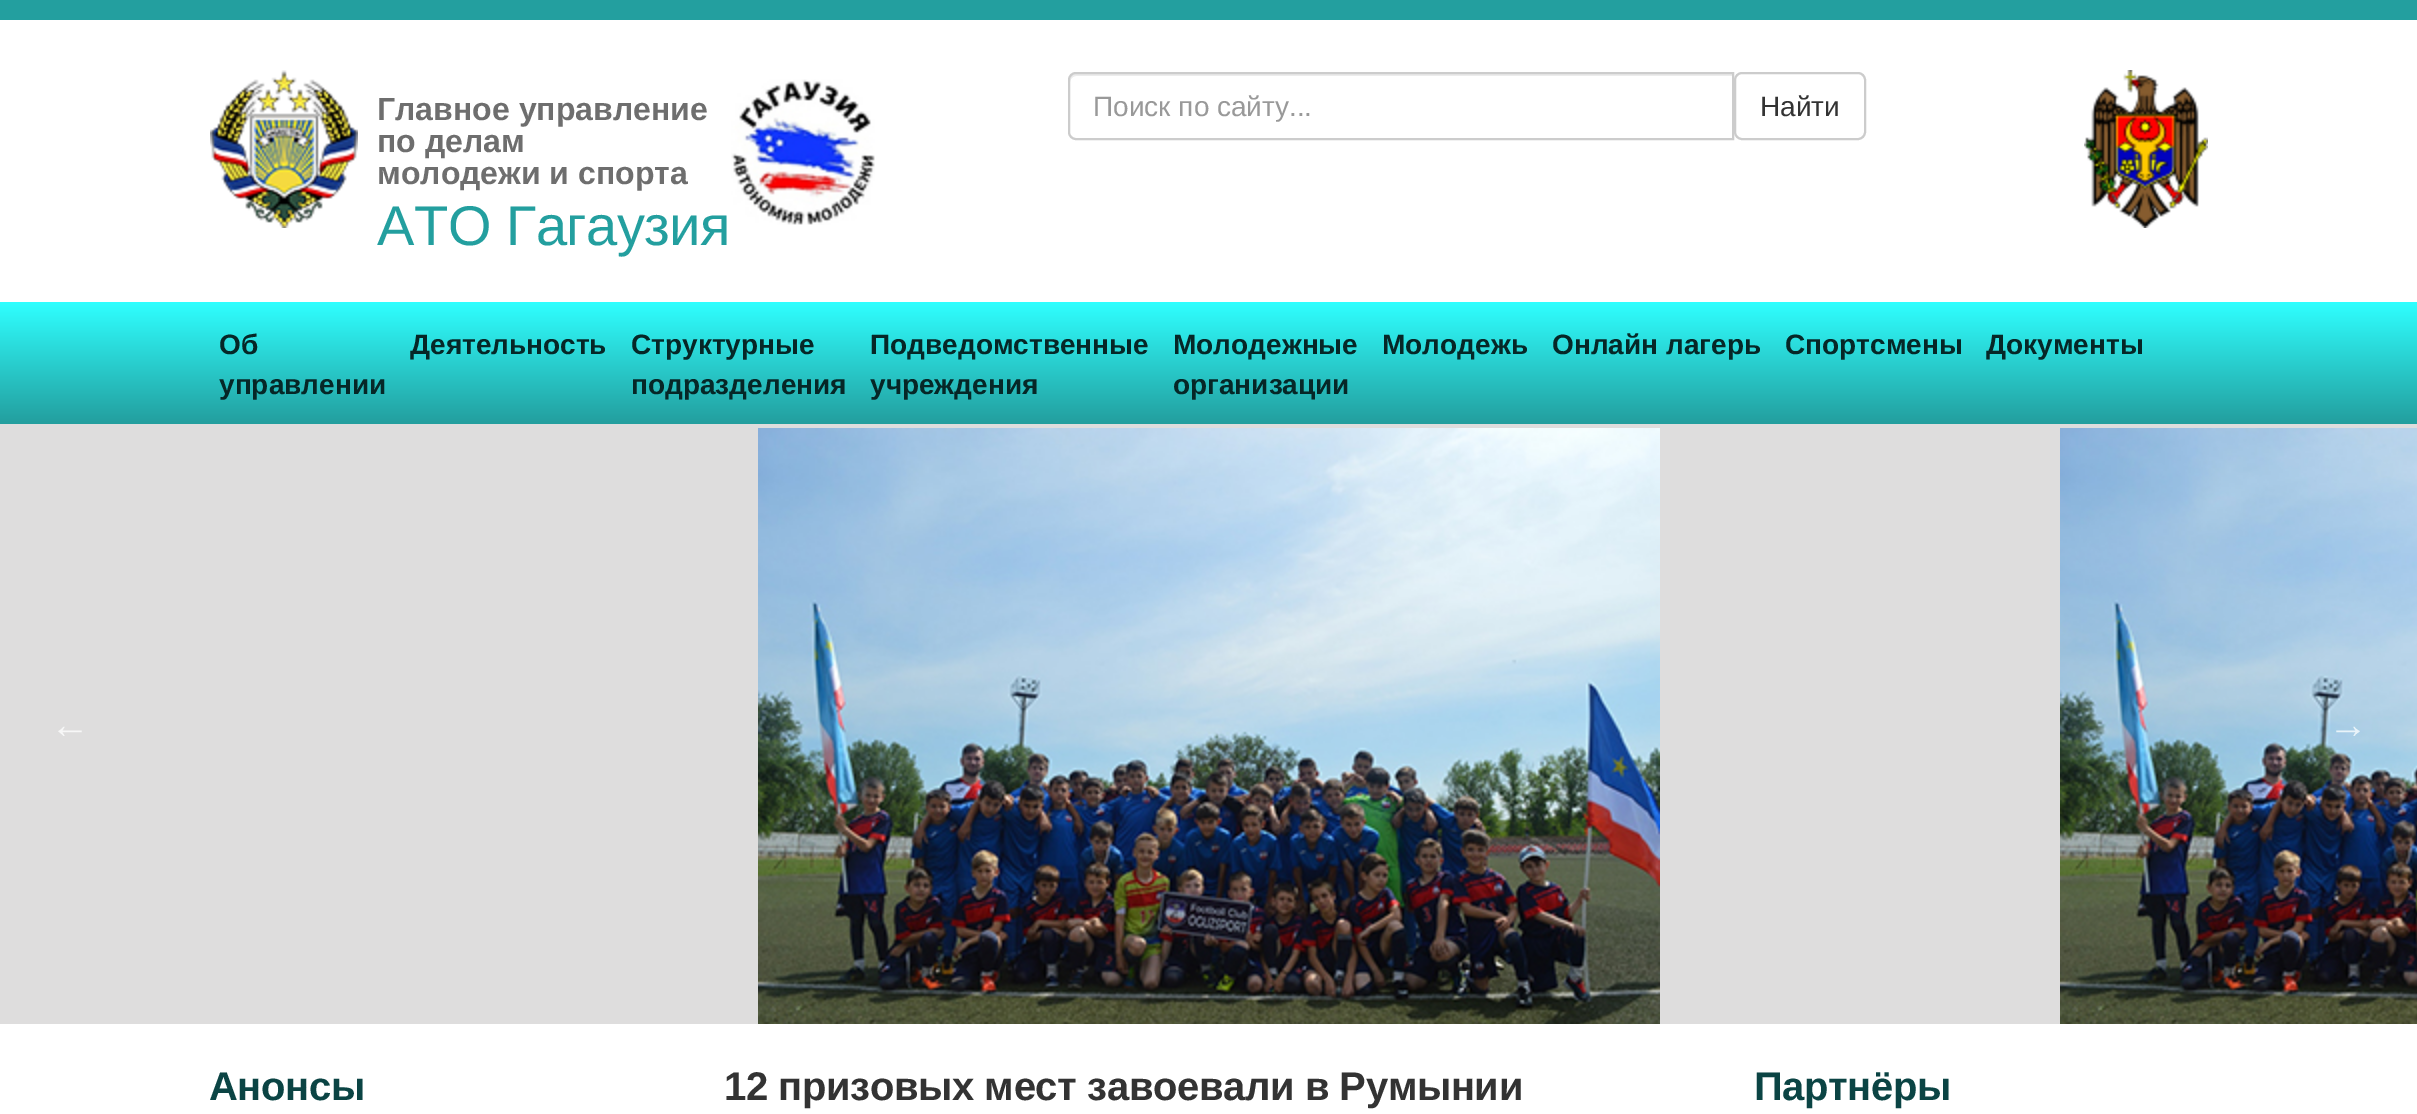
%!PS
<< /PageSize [2417 1114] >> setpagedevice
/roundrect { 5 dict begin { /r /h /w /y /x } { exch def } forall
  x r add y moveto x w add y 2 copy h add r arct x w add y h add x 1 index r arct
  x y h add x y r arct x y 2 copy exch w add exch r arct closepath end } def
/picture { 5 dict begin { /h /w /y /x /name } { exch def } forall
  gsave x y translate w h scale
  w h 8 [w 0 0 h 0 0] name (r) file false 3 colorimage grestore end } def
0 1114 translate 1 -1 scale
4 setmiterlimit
1 setgray
0 0 2417 1114 rectfill
0.137 0.624 0.624 setrgbcolor
0 0 2417 20 rectfill
(img1.rgb) 210 70 148 158 picture
/LiberationSans-Bold [32 0 0 -32 0 0] selectfont
0.431 setgray
377 120 moveto (Главное управление) show
377 152 moveto (по делам) show
377 184 moveto (молодежи и спорта) show
/LiberationSans-Regular [56 0 0 -56 0 0] selectfont
0.137 0.624 0.624 setrgbcolor
377 245 moveto -0.5 0 (АТО Гагаузия) ashow
(img2.rgb) 731 79 144 146 picture
0.925 setgray
newpath 1076 76 moveto 1732 76 lineto 1732 74 lineto 1076 74 lineto 1071 74 1070 78 1070 82 curveto 1070 79 1073 76 1076 76 curveto closepath fill
0.8 setgray
2 setlinewidth
newpath 1076 73 moveto 1733 73 lineto 1733 139 lineto 1076 139 lineto 1072 139 1069 136 1069 132 curveto 1069 80 lineto 1069 76 1072 73 1076 73 curveto closepath stroke
/LiberationSans-Regular [28 0 0 -28 0 0] selectfont
0.6 setgray
1093 116 moveto (Поиск по сайту...) show
0.8 setgray
1735 73 130 66 7 roundrect stroke
0.2 setgray
1760 116 moveto (Найти) show
(img3.rgb) 2084 70 124 158 picture
gsave newpath 0 302 moveto 2417 302 lineto 2417 424 lineto 0 424 lineto closepath clip newpath
<< /ShadingType 2 /ColorSpace /DeviceRGB /Coords [1209 302 1209 424] /Extend [true true] /Function << /FunctionType 2 /Domain [0 1] /C0 [0.184 1 1] /C1 [0.137 0.62 0.62] /N 1 >> >> shfill grestore
/LiberationSans-Bold [28 0 0 -28 0 0] selectfont
0.024 0.153 0.153 setrgbcolor
219 354 moveto (Об) show
219 394 moveto (управлении) show
410 354 moveto (Деятельность) show
631 354 moveto (Структурные) show
631 394 moveto (подразделения) show
870 354 moveto (Подведомственные) show
870 394 moveto (учреждения) show
1173 354 moveto (Молодежные) show
1173 394 moveto (организации) show
1382 354 moveto (Молодежь) show
1552 354 moveto (Онлайн лагерь) show
1785 354 moveto (Спортсмены) show
1986 354 moveto (Документы) show
0.871 0.867 0.867 setrgbcolor
0 424 2417 600 rectfill
/LiberationSerif-Regular [40 0 0 -40 0 0] selectfont
0.969 setgray
50 738 moveto (←) show
(img4.rgb) 758 428 902 596 picture
(img5.rgb) 2060 428 357 596 picture
0.914 0.953 0.976 setrgbcolor
2328 738 moveto (→) show
/LiberationSans-Bold [40 0 0 -40 0 0] selectfont
0.043 0.267 0.267 setrgbcolor
209 1100 moveto -0.4 0 (Анонсы) ashow
0.2 setgray
724 1100 moveto -0.4 0 (12 призовых мест завоевали в Румынии) ashow
0.043 0.267 0.267 setrgbcolor
1754 1100 moveto -0.4 0 (Партнёры) ashow
showpage
